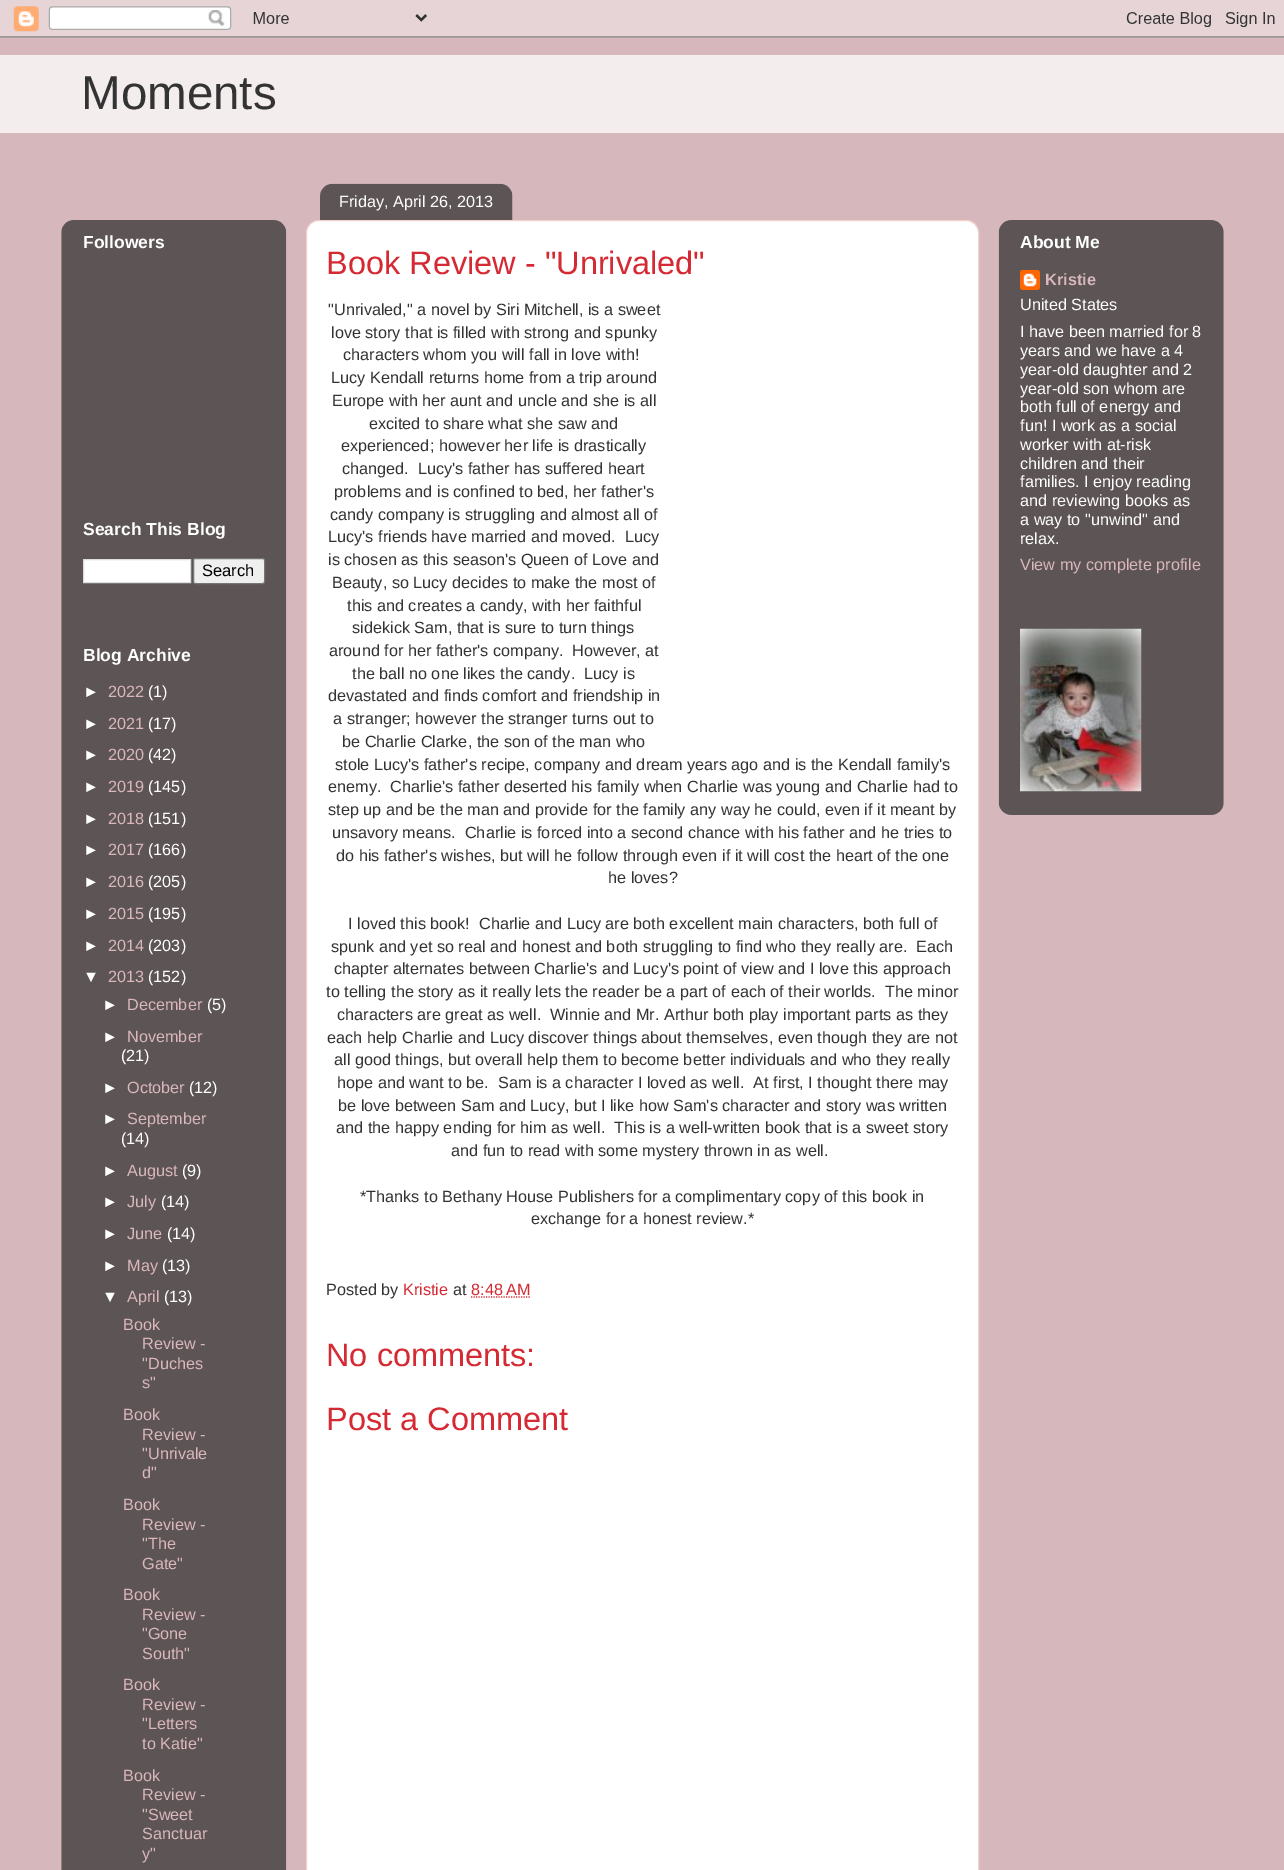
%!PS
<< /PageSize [1284 1870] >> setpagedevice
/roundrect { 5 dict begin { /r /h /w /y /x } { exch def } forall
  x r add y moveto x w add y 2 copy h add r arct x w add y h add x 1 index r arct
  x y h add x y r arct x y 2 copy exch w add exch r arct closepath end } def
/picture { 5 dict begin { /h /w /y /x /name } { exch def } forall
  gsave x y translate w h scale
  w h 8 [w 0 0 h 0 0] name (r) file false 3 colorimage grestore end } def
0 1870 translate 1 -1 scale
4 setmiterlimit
0.835 0.718 0.737 setrgbcolor
0 0 1284 1870 rectfill
(img1.rgb) 0 0 1284 38 picture
0.957 0.929 0.933 setrgbcolor
0 55 1284 78 rectfill
/LiberationSans-Regular [47.5 0 0 -47.5 0 0] selectfont
0.2 setgray
81 109 moveto (Moments) show
(img2.rgb) 61 220 226 1650 picture
/LiberationSans-Bold [17.5 0 0 -17.5 0 0] selectfont
1 setgray
83 248 moveto (Followers) show
83 535 moveto (Search This Blog) show
newpath 83.5 559.5 moveto 190.5 559.5 lineto 190.5 582.5 lineto 83.5 582.5 lineto closepath gsave fill grestore
0.867 setgray
stroke
0.937 setgray
193.5 558.5 71 25 2 roundrect gsave fill grestore
0.463 setgray
stroke
/LiberationSans-Regular [16.5 0 0 -16.5 0 0] selectfont
0 setgray
202 576 moveto (Search) show
/LiberationSans-Bold [17.5 0 0 -17.5 0 0] selectfont
1 setgray
83 661 moveto (Blog Archive) show
/LiberationSans-Regular [16.25 0 0 -16.25 0 0] selectfont
83 697 moveto (►) show
0.855 0.718 0.737 setrgbcolor
108 697 moveto (2022) show
1 setgray
148 697 moveto (\(1\)) show
83 729 moveto (►) show
0.855 0.718 0.737 setrgbcolor
108 729 moveto (2021) show
1 setgray
148 729 moveto (\(17\)) show
83 760 moveto (►) show
0.855 0.718 0.737 setrgbcolor
108 760 moveto (2020) show
1 setgray
148 760 moveto (\(42\)) show
83 792 moveto (►) show
0.855 0.718 0.737 setrgbcolor
108 792 moveto (2019) show
1 setgray
148 792 moveto (\(145\)) show
83 824 moveto (►) show
0.855 0.718 0.737 setrgbcolor
108 824 moveto (2018) show
1 setgray
148 824 moveto (\(151\)) show
83 855 moveto (►) show
0.855 0.718 0.737 setrgbcolor
108 855 moveto (2017) show
1 setgray
148 855 moveto (\(166\)) show
83 887 moveto (►) show
0.855 0.718 0.737 setrgbcolor
108 887 moveto (2016) show
1 setgray
148 887 moveto (\(205\)) show
83 919 moveto (►) show
0.855 0.718 0.737 setrgbcolor
108 919 moveto (2015) show
1 setgray
148 919 moveto (\(195\)) show
83 951 moveto (►) show
0.855 0.718 0.737 setrgbcolor
108 951 moveto (2014) show
1 setgray
148 951 moveto (\(203\)) show
83 982 moveto (▼) show
0.855 0.718 0.737 setrgbcolor
108 982 moveto (2013) show
1 setgray
148 982 moveto (\(152\)) show
102 1010 moveto (►) show
0.855 0.718 0.737 setrgbcolor
127 1010 moveto (December) show
1 setgray
207 1010 moveto (\(5\)) show
102 1042 moveto (►) show
0.855 0.718 0.737 setrgbcolor
127 1042 moveto (November) show
1 setgray
121 1061 moveto (\(21\)) show
102 1093 moveto (►) show
0.855 0.718 0.737 setrgbcolor
127 1093 moveto (October) show
1 setgray
189 1093 moveto (\(12\)) show
102 1124 moveto (►) show
0.855 0.718 0.737 setrgbcolor
127 1124 moveto (September) show
1 setgray
121 1144 moveto (\(14\)) show
102 1176 moveto (►) show
0.855 0.718 0.737 setrgbcolor
127 1176 moveto (August) show
1 setgray
182 1176 moveto (\(9\)) show
102 1207 moveto (►) show
0.855 0.718 0.737 setrgbcolor
127 1207 moveto (July) show
1 setgray
161 1207 moveto (\(14\)) show
102 1239 moveto (►) show
0.855 0.718 0.737 setrgbcolor
127 1239 moveto (June) show
1 setgray
167 1239 moveto (\(14\)) show
102 1271 moveto (►) show
0.855 0.718 0.737 setrgbcolor
127 1271 moveto (May) show
1 setgray
162 1271 moveto (\(13\)) show
102 1302 moveto (▼) show
0.855 0.718 0.737 setrgbcolor
127 1302 moveto (April) show
1 setgray
164 1302 moveto (\(13\)) show
0.855 0.718 0.737 setrgbcolor
123 1330 moveto (Book) show
142 1349 moveto (Review -) show
142 1369 moveto ("Duches) show
142 1388 moveto (s") show
123 1420 moveto (Book) show
142 1440 moveto (Review -) show
142 1459 moveto ("Unrivale) show
142 1478 moveto (d") show
123 1510 moveto (Book) show
142 1530 moveto (Review -) show
142 1549 moveto ("The) show
142 1569 moveto (Gate") show
123 1600 moveto (Book) show
142 1620 moveto (Review -) show
142 1639 moveto ("Gone) show
142 1659 moveto (South") show
123 1690 moveto (Book) show
142 1710 moveto (Review -) show
142 1729 moveto ("Letters) show
142 1749 moveto (to Katie") show
123 1781 moveto (Book) show
142 1800 moveto (Review -) show
142 1820 moveto ("Sweet) show
142 1839 moveto (Sanctuar) show
142 1859 moveto (y") show
1 setgray
newpath 319 220.5 moveto 966 220.5 lineto 973 220.5 978.5 226 978.5 233 curveto 978.5 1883.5 lineto 306.5 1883.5 lineto 306.5 233 lineto 306.5 226 312 220.5 319 220.5 curveto closepath gsave fill grestore
0.957 0.827 0.8 setrgbcolor
stroke
(img3.rgb) 320 183 193 37 picture
1 setgray
339 207 moveto (Friday, April 26, 2013) show
/LiberationSans-Regular [32.5 0 0 -32.5 0 0] selectfont
0.835 0.165 0.2 setrgbcolor
326 274 moveto (Book Review - "Unrivaled") show
/LiberationSans-Regular [16.25 0 0 -16.25 0 0] selectfont
0.2 setgray
328 315 moveto ("Unrivaled," a novel by Siri Mitchell, is a sweet) show
331 338 moveto (love story that is filled with strong and spunky) show
343 360 moveto (characters whom you will fall in love with!) show
331 383 moveto (Lucy Kendall returns home from a trip around) show
332 406 moveto (Europe with her aunt and uncle and she is all) show
369 429 moveto (excited to share what she saw and) show
341 451 moveto (experienced; however her life is drastically) show
342 474 moveto (changed.  Lucy's father has suffered heart) show
334 497 moveto (problems and is confined to bed, her father's) show
330 520 moveto (candy company is struggling and almost all of) show
328 542 moveto (Lucy's friends have married and moved.  Lucy) show
328 565 moveto (is chosen as this season's Queen of Love and) show
332 588 moveto (Beauty, so Lucy decides to make the most of) show
347 611 moveto (this and creates a candy, with her faithful) show
352 633 moveto (sidekick Sam, that is sure to turn things) show
329 656 moveto (around for her father's company.  However, at) show
352 679 moveto (the ball no one likes the candy.  Lucy is) show
328 701 moveto (devastated and finds comfort and friendship in) show
333 724 moveto (a stranger; however the stranger turns out to) show
342 747 moveto (be Charlie Clarke, the son of the man who) show
335 770 moveto (stole Lucy's father's recipe, company and dream years ago and is the Kendall family's) show
328 792 moveto (enemy.  Charlie's father deserted his family when Charlie was young and Charlie had to) show
328 815 moveto (step up and be the man and provide for the family any way he could, even if it meant by) show
332 838 moveto (unsavory means.  Charlie is forced into a second chance with his father and he tries to) show
336 861 moveto (do his father's wishes, but will he follow through even if it will cost the heart of the one) show
608 883 moveto (he loves?) show
348 929 moveto (I loved this book!  Charlie and Lucy are both excellent main characters, both full of) show
331 952 moveto (spunk and yet so real and honest and both struggling to find who they really are.  Each) show
334 974 moveto (chapter alternates between Charlie's and Lucy's point of view and I love this approach) show
326 997 moveto (to telling the story as it really lets the reader be a part of each of their worlds.  The minor) show
337 1020 moveto (characters are great as well.  Winnie and Mr. Arthur both play important parts as they) show
327 1043 moveto (each help Charlie and Lucy discover things about themselves, even though they are not) show
334 1065 moveto (all good things, but overall help them to become better individuals and who they really) show
337 1088 moveto (hope and want to be.  Sam is a character I loved as well.  At first, I thought there may) show
338 1111 moveto (be love between Sam and Lucy, but I like how Sam's character and story was written) show
336 1133 moveto (and the happy ending for him as well.  This is a well-written book that is a sweet story) show
451 1156 moveto (and fun to read with some mystery thrown in as well.) show
360 1202 moveto (*Thanks to Bethany House Publishers for a complimentary copy of this book in) show
531 1224 moveto (exchange for a honest review.*) show
326 1295 moveto (Posted by) show
0.835 0.165 0.2 setrgbcolor
403 1295 moveto (Kristie) show
0.2 setgray
453 1295 moveto (at) show
0.835 0.165 0.2 setrgbcolor
471 1295 moveto (8:48 AM) show
1.2 setlinewidth
[1.25 1.25] 0 setdash
newpath 471 1297 moveto 530 1297 lineto stroke
/LiberationSans-Regular [32.5 0 0 -32.5 0 0] selectfont
326 1366 moveto (No comments:) show
326 1430 moveto (Post a Comment) show
(img4.rgb) 998 220 226 595 picture
/LiberationSans-Bold [17.5 0 0 -17.5 0 0] selectfont
1 setgray
1020 248 moveto (About Me) show
(img5.rgb) 1020 270 20 20 picture
/LiberationSans-Bold [16.25 0 0 -16.25 0 0] selectfont
0.855 0.718 0.737 setrgbcolor
1045 285 moveto (Kristie) show
/LiberationSans-Regular [16.25 0 0 -16.25 0 0] selectfont
1 setgray
1020 310 moveto (United States) show
1020 337 moveto (I have been married for 8) show
1020 356 moveto (years and we have a 4) show
1020 375 moveto (year-old daughter and 2) show
1020 394 moveto (year-old son whom are) show
1020 412 moveto (both full of energy and) show
1020 431 moveto (fun! I work as a social) show
1020 450 moveto (worker with at-risk) show
1020 469 moveto (children and their) show
1020 487 moveto (families. I enjoy reading) show
1020 506 moveto (and reviewing books as) show
1020 525 moveto (a way to "unwind" and) show
1020 544 moveto (relax.) show
0.855 0.718 0.737 setrgbcolor
1020 570 moveto (View my complete profile) show
(img6.rgb) 1020 628 122 164 picture
showpage
